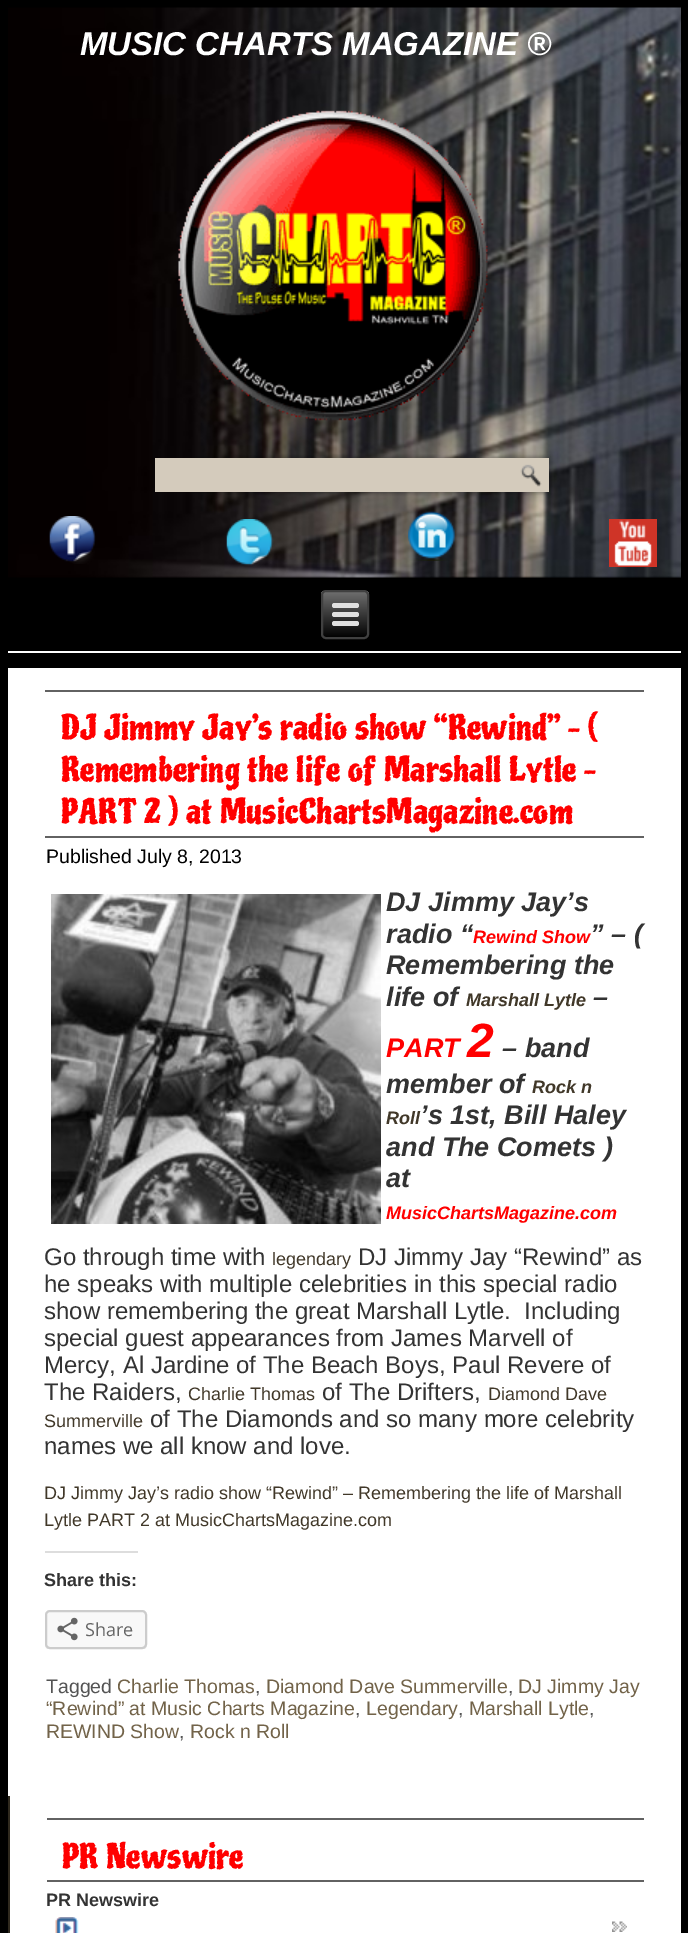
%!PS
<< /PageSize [688 1933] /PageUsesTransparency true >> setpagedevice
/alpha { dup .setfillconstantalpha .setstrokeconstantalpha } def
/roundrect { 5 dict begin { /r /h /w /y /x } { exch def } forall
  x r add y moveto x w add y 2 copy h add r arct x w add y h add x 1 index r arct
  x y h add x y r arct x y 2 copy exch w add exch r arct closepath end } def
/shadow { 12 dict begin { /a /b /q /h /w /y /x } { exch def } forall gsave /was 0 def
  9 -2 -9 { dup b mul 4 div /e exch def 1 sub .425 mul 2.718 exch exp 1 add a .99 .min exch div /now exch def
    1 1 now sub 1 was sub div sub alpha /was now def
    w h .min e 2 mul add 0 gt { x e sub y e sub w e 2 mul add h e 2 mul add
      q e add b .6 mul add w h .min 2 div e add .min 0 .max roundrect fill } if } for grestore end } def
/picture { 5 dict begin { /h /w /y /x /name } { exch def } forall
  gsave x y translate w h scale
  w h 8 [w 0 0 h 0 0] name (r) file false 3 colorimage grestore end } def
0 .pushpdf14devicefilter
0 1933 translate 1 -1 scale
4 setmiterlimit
0 setgray
0 0 688 1933 rectfill
(img1.rgb) 8 7 673 571 picture
/LiberationSans-BoldItalic [33 0 0 -33 0 0] selectfont
1 setgray
80 55 moveto (MUSIC CHARTS MAGAZINE ®) show
(img2.rgb) 178 110 310 311 picture
0 setgray
153 456 398 38 0 1.5 0.2 shadow
0.831 0.796 0.737 setrgbcolor
155 458 394 34 rectfill
(img3.rgb) 520 464 22 23 picture
(img4.rgb) 49 516 47 48 picture
(img5.rgb) 226 519 48 48 picture
(img6.rgb) 408 511 47 50 picture
(img7.rgb) 609 519 48 48 picture
1 setgray
8 651 673 2 rectfill
gsave
321 590 48 49 5 roundrect clip newpath
gsave newpath 321 591 moveto 369 591 lineto 369 638 lineto 321 638 lineto closepath clip newpath
<< /ShadingType 2 /ColorSpace /DeviceRGB /Coords [345 591 345 638] /Extend [true true] /Function << /FunctionType 2 /Domain [0 1] /C0 [0.439 0.439 0.439] /C1 [0 0 0] /N 1 >> >> shfill grestore
grestore
0.251 setgray
2 setlinewidth
322 591 46 47 4 roundrect stroke
0.878 setgray
332 603 27 5 2.5 roundrect fill
332 612 27 5 2.5 roundrect fill
332 621 27 5 2.5 roundrect fill
1 setgray
8 668 673 1265 rectfill
0.384 setgray
45 690 599 2 rectfill
45 836 599 2 rectfill
/Piedra-Regular [33 0 0 -33 0 0] selectfont
1 0 0 setrgbcolor
61 739 moveto (DJ Jimmy Jay’s radio show “Rewind” – \() show
61 781 moveto (Remembering the life of Marshall Lytle –) show
61 823 moveto (PART 2 \) at MusicChartsMagazine.com) show
/LiberationSans-Regular [19.5 0 0 -19.5 0 0] selectfont
0 setgray
46 863 moveto (Published July 8, 2013) show
(img8.rgb) 51 894 330 330 picture
/LiberationSans-BoldItalic [27 0 0 -27 0 0] selectfont
0.2 setgray
386 911 moveto (DJ Jimmy Jay’s) show
386 943 moveto (radio “) show
/LiberationSans-BoldItalic [18 0 0 -18 0 0] selectfont
1 0 0 setrgbcolor
473 943 moveto (Rewind Show) show
/LiberationSans-BoldItalic [27 0 0 -27 0 0] selectfont
0.2 setgray
590 943 moveto (” – \() show
386 974 moveto (Remembering the) show
386 1006 moveto (life of) show
/LiberationSans-BoldItalic [18 0 0 -18 0 0] selectfont
0.255 0.22 0.161 setrgbcolor
466 1006 moveto (Marshall Lytle) show
/LiberationSans-BoldItalic [27 0 0 -27 0 0] selectfont
0.2 setgray
593 1006 moveto (–) show
1 0 0 setrgbcolor
386 1057 moveto (PART) show
/LiberationSans-BoldItalic [48 0 0 -48 0 0] selectfont
467 1057 moveto (2) show
/LiberationSans-BoldItalic [27 0 0 -27 0 0] selectfont
0.2 setgray
502 1057 moveto (– band) show
386 1093 moveto (member of) show
/LiberationSans-BoldItalic [18 0 0 -18 0 0] selectfont
0.255 0.22 0.161 setrgbcolor
532 1093 moveto (Rock n) show
386 1124 moveto (Roll) show
/LiberationSans-BoldItalic [27 0 0 -27 0 0] selectfont
0.2 setgray
420 1124 moveto (’s 1st, Bill Haley) show
386 1156 moveto (and The Comets \)) show
386 1187 moveto (at) show
/LiberationSans-BoldItalic [18 0 0 -18 0 0] selectfont
1 0 0 setrgbcolor
386 1219 moveto (MusicChartsMagazine.com) show
/LiberationSans-Regular [24 0 0 -24 0 0] selectfont
0.2 setgray
44 1265 moveto (Go through time with) show
/LiberationSans-Regular [18 0 0 -18 0 0] selectfont
0.255 0.22 0.161 setrgbcolor
272 1265 moveto (legendary) show
/LiberationSans-Regular [24 0 0 -24 0 0] selectfont
0.2 setgray
358 1265 moveto (DJ Jimmy Jay “Rewind” as) show
44 1292 moveto (he speaks with multiple celebrities in this special radio) show
44 1319 moveto (show remembering the great Marshall Lytle.  Including) show
44 1346 moveto (special guest appearances from James Marvell of) show
44 1373 moveto (Mercy, Al Jardine of The Beach Boys, Paul Revere of) show
44 1400 moveto (The Raiders,) show
/LiberationSans-Regular [18 0 0 -18 0 0] selectfont
0.255 0.22 0.161 setrgbcolor
188 1400 moveto (Charlie Thomas) show
/LiberationSans-Regular [24 0 0 -24 0 0] selectfont
0.2 setgray
322 1400 moveto (of The Drifters,) show
/LiberationSans-Regular [18 0 0 -18 0 0] selectfont
0.255 0.22 0.161 setrgbcolor
488 1400 moveto (Diamond Dave) show
44 1427 moveto (Summerville) show
/LiberationSans-Regular [24 0 0 -24 0 0] selectfont
0.2 setgray
150 1427 moveto (of The Diamonds and so many more celebrity) show
44 1454 moveto (names we all know and love.) show
/LiberationSans-Regular [18 0 0 -18 0 0] selectfont
0.255 0.22 0.161 setrgbcolor
44 1499 moveto (DJ Jimmy Jay’s radio show “Rewind” – Remembering the life of Marshall) show
44 1526 moveto (Lytle PART 2 at MusicChartsMagazine.com) show
0.867 setgray
45 1551 93 2 rectfill
/LiberationSans-Bold [18 0 0 -18 0 0] selectfont
0.2 setgray
44 1586 moveto (Share this:) show
gsave
45 1610 102 39 rectclip
0.922 setgray
newpath 45 1644 moveto 45 1654 60 1650 65 1650 curveto 127 1650 lineto 132 1650 147 1654 147 1644 curveto 147 1646 145 1648 142 1648 curveto 50 1648 lineto 47 1648 45 1646 45 1644 curveto closepath fill
grestore
0.973 setgray
46 1611 100 37 4 roundrect gsave fill grestore
0.8 setgray
stroke
(img9.rgb) 57 1617 21 24 picture
/OpenSans-Regular [18 0 0 -18 0 0] selectfont
0.396 setgray
85 1636 moveto (Share) show
/LiberationSans-Regular [19.5 0 0 -19.5 0 0] selectfont
0.329 setgray
46 1693 moveto (Tagged) show
0.447 0.388 0.286 setrgbcolor
117 1693 moveto (Charlie Thomas) show
0.329 setgray
255 1693 moveto (,) show
0.447 0.388 0.286 setrgbcolor
266 1693 moveto (Diamond Dave Summerville) show
0.329 setgray
508 1693 moveto (,) show
0.447 0.388 0.286 setrgbcolor
518 1693 moveto (DJ Jimmy Jay) show
46 1715 moveto (“Rewind” at Music Charts Magazine) show
0.329 setgray
355 1715 moveto (,) show
0.447 0.388 0.286 setrgbcolor
366 1715 moveto (Legendary) show
0.329 setgray
458 1715 moveto (,) show
0.447 0.388 0.286 setrgbcolor
469 1715 moveto (Marshall Lytle) show
0.329 setgray
589 1715 moveto (,) show
0.447 0.388 0.286 setrgbcolor
46 1738 moveto (REWIND Show) show
0.329 setgray
179 1738 moveto (,) show
0.447 0.388 0.286 setrgbcolor
190 1738 moveto (Rock n Roll) show
0.184 0.161 0.118 setrgbcolor
8 1796 2 137 rectfill
0.384 setgray
47 1818 597 2 rectfill
47 1880 597 2 rectfill
/Piedra-Regular [33 0 0 -33 0 0] selectfont
1 0 0 setrgbcolor
62 1868 moveto (PR Newswire) show
/LiberationSans-Bold [18 0 0 -18 0 0] selectfont
0.2 setgray
46 1906 moveto (PR Newswire) show
(img10.rgb) 55 1917 24 16 picture
(img11.rgb) 612 1921 15 11 picture
.poppdf14devicefilter showpage
